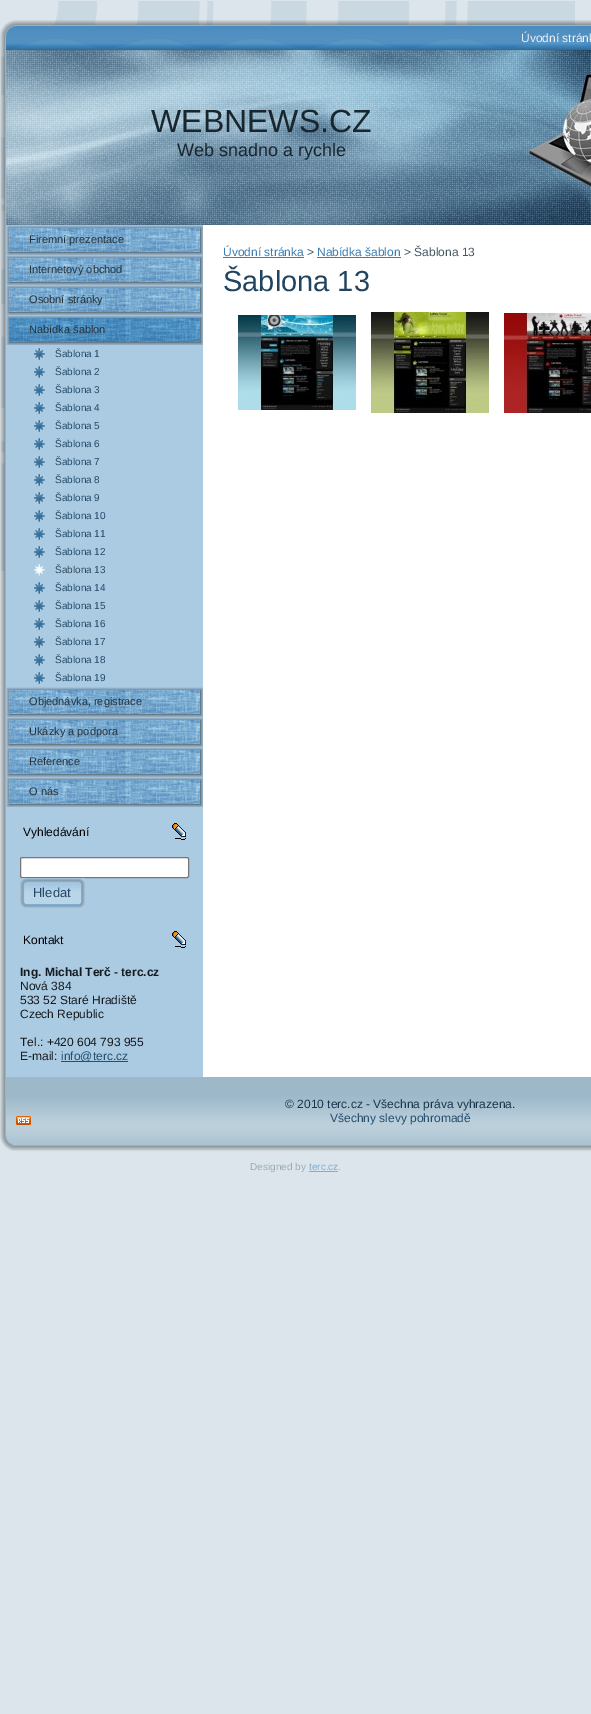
%!PS
<< /PageSize [591 1714] >> setpagedevice
/roundrect { 5 dict begin { /r /h /w /y /x } { exch def } forall
  x r add y moveto x w add y 2 copy h add r arct x w add y h add x 1 index r arct
  x y h add x y r arct x y 2 copy exch w add exch r arct closepath end } def
/picture { 5 dict begin { /h /w /y /x /name } { exch def } forall
  gsave x y translate w h scale
  w h 8 [w 0 0 h 0 0] name (r) file false 3 colorimage grestore end } def
0 1714 translate 1 -1 scale
4 setmiterlimit
0.859 0.898 0.922 setrgbcolor
0 0 591 1714 rectfill
(img1.rgb) 1 1 574 570 picture
(img2.rgb) 0 20 31 31 picture
(img3.rgb) 31 20 560 6 picture
(img4.rgb) 0 51 6 1069 picture
(img5.rgb) 6 26 585 24 picture
/LiberationSans-Regular [12 0 0 -12 0 0] selectfont
0.925 0.953 0.976 setrgbcolor
521 42 moveto (Úvodní stránk) show
(img6.rgb) 6 50 585 175 picture
/LiberationSans-Regular [32 0 0 -32 0 0] selectfont
0.098 0.149 0.18 setrgbcolor
151 132 moveto (WEBNEWS.CZ) show
/LiberationSans-Regular [18 0 0 -18 0 0] selectfont
177 156 moveto (Web snadno a rychle) show
0.671 0.796 0.89 setrgbcolor
6 225 197 852 rectfill
(img7.rgb) 6 225 197 30 picture
/LiberationSans-Regular [11 0 0 -11 0 0] selectfont
0.153 0.2 0.227 setrgbcolor
29 243 moveto (Firemní prezentace) show
(img7.rgb) 6 255 197 30 picture
29 273 moveto (Internetový obchod) show
(img7.rgb) 6 285 197 30 picture
29 303 moveto (Osobní stránky) show
(img8.rgb) 6 315 197 30 picture
29 333 moveto (Nabídka šablon) show
(img9.rgb) 34 348 11 12 picture
/LiberationSans-Regular [10 0 0 -10 0 0] selectfont
0.133 0.286 0.404 setrgbcolor
55 357 moveto (Šablona 1) show
(img9.rgb) 34 366 11 12 picture
55 375 moveto (Šablona 2) show
(img9.rgb) 34 384 11 12 picture
55 393 moveto (Šablona 3) show
(img9.rgb) 34 402 11 12 picture
55 411 moveto (Šablona 4) show
(img9.rgb) 34 420 11 12 picture
55 429 moveto (Šablona 5) show
(img9.rgb) 34 438 11 12 picture
55 447 moveto (Šablona 6) show
(img9.rgb) 34 456 11 12 picture
55 465 moveto (Šablona 7) show
(img9.rgb) 34 474 11 12 picture
55 483 moveto (Šablona 8) show
(img9.rgb) 34 492 11 12 picture
55 501 moveto (Šablona 9) show
(img9.rgb) 34 510 11 12 picture
55 519 moveto (Šablona 10) show
(img9.rgb) 34 528 11 12 picture
55 537 moveto (Šablona 11) show
(img9.rgb) 34 546 11 12 picture
55 555 moveto (Šablona 12) show
(img10.rgb) 34 564 11 12 picture
0.188 0.29 0.353 setrgbcolor
55 573 moveto (Šablona 13) show
(img9.rgb) 34 582 11 12 picture
0.133 0.286 0.404 setrgbcolor
55 591 moveto (Šablona 14) show
(img9.rgb) 34 600 11 12 picture
55 609 moveto (Šablona 15) show
(img9.rgb) 34 618 11 12 picture
55 627 moveto (Šablona 16) show
(img9.rgb) 34 636 11 12 picture
55 645 moveto (Šablona 17) show
(img9.rgb) 34 654 11 12 picture
55 663 moveto (Šablona 18) show
(img9.rgb) 34 672 11 12 picture
55 681 moveto (Šablona 19) show
(img7.rgb) 6 687 197 30 picture
/LiberationSans-Regular [11 0 0 -11 0 0] selectfont
0.153 0.2 0.227 setrgbcolor
29 705 moveto (Objednávka, registrace) show
(img7.rgb) 6 717 197 30 picture
29 735 moveto (Ukázky a podpora) show
(img7.rgb) 6 747 197 30 picture
29 765 moveto (Reference) show
(img7.rgb) 6 777 197 30 picture
29 795 moveto (O nás) show
/LiberationSans-Regular [12 0 0 -12 0 0] selectfont
0 setgray
23 836 moveto (Vyhledávání) show
(img11.rgb) 172 823 14 17 picture
1 setgray
20.5 857.5 168 20 1.5 roundrect gsave fill grestore
0.463 setgray
stroke
(img12.rgb) 20 878 55 30 picture
(img13.rgb) 75 878 10 30 picture
/LiberationSans-Regular [13 0 0 -13 0 0] selectfont
0.133 0.286 0.404 setrgbcolor
33 897 moveto (Hledat) show
/LiberationSans-Regular [12 0 0 -12 0 0] selectfont
0 setgray
23 944 moveto (Kontakt) show
(img11.rgb) 172 931 14 17 picture
/LiberationSans-Bold [12 0 0 -12 0 0] selectfont
0.082 0.106 0.118 setrgbcolor
20 976 moveto (Ing. Michal Terč - terc.cz) show
/LiberationSans-Regular [12 0 0 -12 0 0] selectfont
20 990 moveto (Nová 384) show
20 1004 moveto (533 52 Staré Hradiště) show
20 1018 moveto (Czech Republic) show
20 1046 moveto (Tel.: +420 604 793 955) show
20 1060 moveto (E-mail:) show
0.145 0.31 0.435 setrgbcolor
61 1061 45 1 rectfill
61 1060 moveto (info@terc.cz) show
106 1061 22 1 rectfill
1 setgray
203 225 388 852 rectfill
0.231 0.49 0.69 setrgbcolor
223 256 moveto (Úvodní stránka) show
223 257 81 1 rectfill
0.267 0.345 0.392 setrgbcolor
307 256 moveto (>) show
0.231 0.49 0.69 setrgbcolor
317 256 moveto (Nabídka šablon) show
317 257 84 1 rectfill
0.267 0.345 0.392 setrgbcolor
404 256 moveto (> Šablona 13) show
/LiberationSans-Regular [29 0 0 -29 0 0] selectfont
0.125 0.267 0.376 setrgbcolor
223 291 moveto (Šablona 13) show
(img14.rgb) 238 315 118 95 picture
(img15.rgb) 371 312 118 101 picture
(img16.rgb) 504 313 87 100 picture
0.612 0.722 0.788 setrgbcolor
6 1077 585 18 rectfill
(img20.rgb) 0 1120 31 31 picture
(img17.rgb) 6 1095 10 50 picture
(img18.rgb) 16 1095 575 50 picture
(img19.rgb) 16 1116 15 9 picture
/LiberationSans-Regular [12 0 0 -12 0 0] selectfont
0.102 0.212 0.302 setrgbcolor
285 1108 moveto (© 2010 terc.cz - Všechna práva vyhrazena.) show
0.145 0.31 0.435 setrgbcolor
330 1122 moveto (Všechny slevy pohromadě) show
(img21.rgb) 31 1145 560 6 picture
/LiberationSans-Regular [10 0 0 -10 0 0] selectfont
0.596 0.678 0.725 setrgbcolor
250 1170 moveto (Designed by) show
0.49 0.682 0.831 setrgbcolor
309 1170 moveto (terc.cz) show
309 1171 29 1 rectfill
0.596 0.678 0.725 setrgbcolor
338 1170 moveto (.) show
showpage
